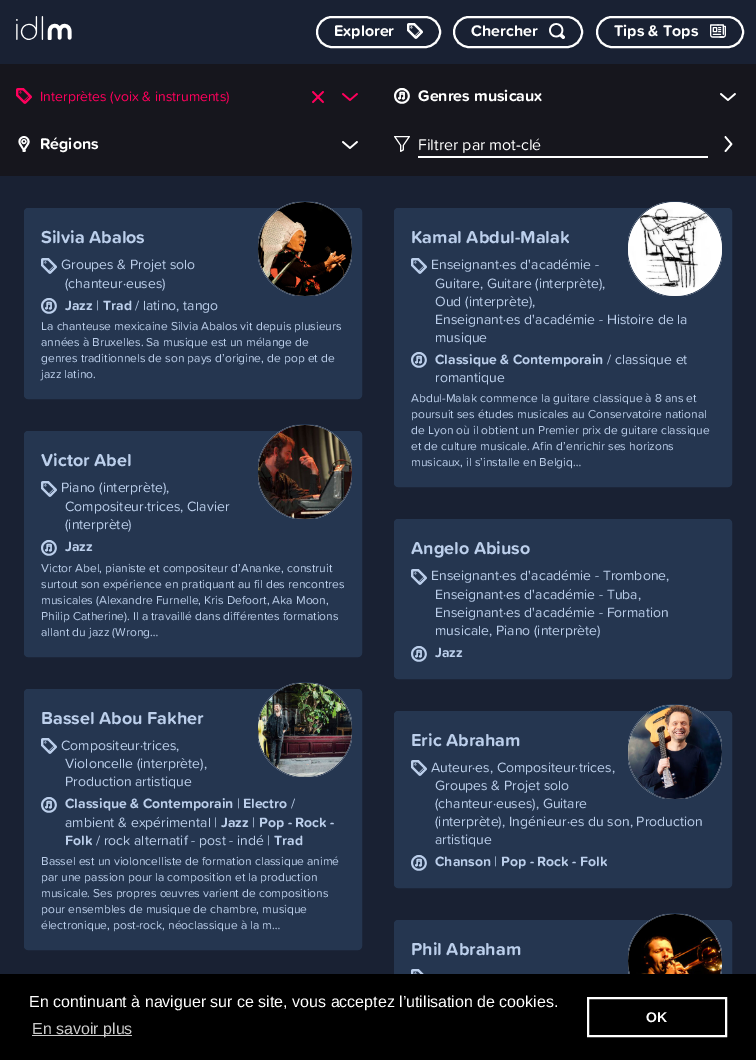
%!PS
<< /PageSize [756 1060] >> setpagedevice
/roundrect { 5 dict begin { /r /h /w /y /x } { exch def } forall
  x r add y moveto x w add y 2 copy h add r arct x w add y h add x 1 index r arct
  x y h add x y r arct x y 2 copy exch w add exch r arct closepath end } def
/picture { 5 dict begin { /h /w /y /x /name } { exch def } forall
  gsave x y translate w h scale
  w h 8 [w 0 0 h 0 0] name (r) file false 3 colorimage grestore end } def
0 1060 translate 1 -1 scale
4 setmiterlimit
0.098 0.129 0.2 setrgbcolor
0 0 756 1060 rectfill
(img1.rgb) 16 16 56 24 picture
1 setgray
2 setlinewidth
317 17 123 30 15 roundrect stroke
/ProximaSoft-Bold [16 0 0 -16 0 0] selectfont
334 36 moveto (Explorer) show
(img2.rgb) 407 23 16 16 picture
454 17 128 30 15 roundrect stroke
471 36 moveto (Chercher) show
(img3.rgb) 549 23 16 16 picture
597 17 146 30 15 roundrect stroke
614 36 moveto (Tips & Tops) show
(img4.rgb) 710 24 16 14 picture
0.086 0.086 0.114 setrgbcolor
0 64 756 112 rectfill
(img5.rgb) 16 88 16 16 picture
/ProximaSoft-Regular [14 0 0 -14 0 0] selectfont
1 0 0.361 setrgbcolor
40 101 moveto (Interprètes \(voix & instruments\)) show
(img6.rgb) 312 91 12 12 picture
(img7.rgb) 342 93 16 8 picture
(img8.rgb) 394 88 16 16 picture
/ProximaSoft-Bold [16 0 0 -16 0 0] selectfont
1 setgray
418 101 moveto (Genres musicaux) show
(img9.rgb) 720 93 16 8 picture
(img10.rgb) 18 136 12 16 picture
40 149 moveto (Régions) show
(img9.rgb) 342 141 16 8 picture
(img11.rgb) 394 136 16 16 picture
418 156 290 2 rectfill
/ProximaSoft-Regular [16 0 0 -16 0 0] selectfont
418 150 moveto (Filtrer par mot-clé) show
(img12.rgb) 724 136 9 16 picture
0.145 0.212 0.314 setrgbcolor
24.5 208.5 337 190 3.5 roundrect gsave fill grestore
1 setlinewidth
stroke
/ProximaSoft-Bold [18 0 0 -18 0 0] selectfont
0.737 0.812 0.922 setrgbcolor
41 243 moveto (Silvia Abalos) show
0.145 0.212 0.314 setrgbcolor
newpath 305 249 47.5 0 360 arc closepath stroke
(img13.rgb) 258 202 94 94 picture
(img14.rgb) 41 258 16 16 picture
/ProximaSoft-Regular [14 0 0 -14 0 0] selectfont
0.737 0.812 0.922 setrgbcolor
61 269 moveto (Groupes & Projet solo) show
65 288 moveto (\(chanteur·euses\)) show
(img15.rgb) 41 298 16 16 picture
/ProximaSoft-Bold [14 0 0 -14 0 0] selectfont
65 310 moveto (Jazz) show
/ProximaSoft-Regular [14 0 0 -14 0 0] selectfont
96 310 moveto (|) show
/ProximaSoft-Bold [14 0 0 -14 0 0] selectfont
103 310 moveto (Trad) show
/ProximaSoft-Regular [14 0 0 -14 0 0] selectfont
135 310 moveto (/ latino, tango) show
/ProximaSoft-Regular [12 0 0 -12 0 0] selectfont
41 330 moveto (La chanteuse mexicaine Silvia Abalos vit depuis plusieurs) show
41 346 moveto (années à Bruxelles. Sa musique est un mélange de) show
41 362 moveto (genres traditionnels de son pays d’origine, de pop et de) show
41 378 moveto (jazz latino.) show
0.145 0.212 0.314 setrgbcolor
394.5 208.5 337 278 3.5 roundrect gsave fill grestore
stroke
/ProximaSoft-Bold [18 0 0 -18 0 0] selectfont
0.737 0.812 0.922 setrgbcolor
411 243 moveto (Kamal Abdul-Malak) show
0.145 0.212 0.314 setrgbcolor
newpath 675 249 47.5 0 360 arc closepath stroke
(img16.rgb) 628 202 94 94 picture
(img14.rgb) 411 258 16 16 picture
/ProximaSoft-Regular [14 0 0 -14 0 0] selectfont
0.737 0.812 0.922 setrgbcolor
431 269 moveto (Enseignant·es d'académie -) show
435 288 moveto (Guitare, Guitare \(interprète\),) show
435 306 moveto (Oud \(interprète\),) show
435 324 moveto (Enseignant·es d'académie - Histoire de la) show
435 342 moveto (musique) show
(img15.rgb) 411 352 16 16 picture
/ProximaSoft-Bold [14 0 0 -14 0 0] selectfont
435 364 moveto (Classique & Contemporain) show
/ProximaSoft-Regular [14 0 0 -14 0 0] selectfont
607 364 moveto (/ classique et) show
435 382 moveto (romantique) show
/ProximaSoft-Regular [12 0 0 -12 0 0] selectfont
411 402 moveto (Abdul-Malak commence la guitare classique à 8 ans et) show
411 418 moveto (poursuit ses études musicales au Conservatoire national) show
411 434 moveto (de Lyon où il obtient un Premier prix de guitare classique) show
411 450 moveto (et de culture musicale. Afin d’enrichir ses horizons) show
411 466 moveto (musicaux, il s’installe en Belgiq…) show
0.145 0.212 0.314 setrgbcolor
24.5 431.5 337 225 3.5 roundrect gsave fill grestore
stroke
/ProximaSoft-Bold [18 0 0 -18 0 0] selectfont
0.737 0.812 0.922 setrgbcolor
41 466 moveto (Victor Abel) show
0.145 0.212 0.314 setrgbcolor
newpath 305 472 47.5 0 360 arc closepath stroke
(img17.rgb) 258 425 94 94 picture
(img14.rgb) 41 481 16 16 picture
/ProximaSoft-Regular [14 0 0 -14 0 0] selectfont
0.737 0.812 0.922 setrgbcolor
61 492 moveto (Piano \(interprète\),) show
65 511 moveto (Compositeur·trices, Clavier) show
65 529 moveto (\(interprète\)) show
(img15.rgb) 41 540 16 16 picture
/ProximaSoft-Bold [14 0 0 -14 0 0] selectfont
65 551 moveto (Jazz) show
/ProximaSoft-Regular [12 0 0 -12 0 0] selectfont
41 572 moveto (Victor Abel, pianiste et compositeur d’Ananke, construit) show
41 588 moveto (surtout son expérience en pratiquant au fil des rencontres) show
41 604 moveto (musicales \(Alexandre Furnelle, Kris Defoort, Aka Moon,) show
41 620 moveto (Philip Catherine\). Il a travaillé dans différentes formations) show
41 636 moveto (allant du jazz \(Wrong…) show
0.145 0.212 0.314 setrgbcolor
394.5 519.5 337 159 3.5 roundrect gsave fill grestore
stroke
/ProximaSoft-Bold [18 0 0 -18 0 0] selectfont
0.737 0.812 0.922 setrgbcolor
411 554 moveto (Angelo Abiuso) show
(img14.rgb) 411 569 16 16 picture
/ProximaSoft-Regular [14 0 0 -14 0 0] selectfont
431 580 moveto (Enseignant·es d'académie - Trombone,) show
435 599 moveto (Enseignant·es d'académie - Tuba,) show
435 617 moveto (Enseignant·es d'académie - Formation) show
435 635 moveto (musicale, Piano \(interprète\)) show
(img15.rgb) 411 646 16 16 picture
/ProximaSoft-Bold [14 0 0 -14 0 0] selectfont
435 657 moveto (Jazz) show
0.145 0.212 0.314 setrgbcolor
24.5 689.5 337 260 3.5 roundrect gsave fill grestore
stroke
/ProximaSoft-Bold [18 0 0 -18 0 0] selectfont
0.737 0.812 0.922 setrgbcolor
41 724 moveto (Bassel Abou Fakher) show
0.145 0.212 0.314 setrgbcolor
newpath 305 730 47.5 0 360 arc closepath stroke
(img18.rgb) 258 683 94 94 picture
(img14.rgb) 41 738 16 16 picture
/ProximaSoft-Regular [14 0 0 -14 0 0] selectfont
0.737 0.812 0.922 setrgbcolor
61 750 moveto (Compositeur·trices,) show
65 768 moveto (Violoncelle \(interprète\),) show
65 786 moveto (Production artistique) show
(img15.rgb) 41 797 16 16 picture
/ProximaSoft-Bold [14 0 0 -14 0 0] selectfont
65 808 moveto (Classique & Contemporain) show
/ProximaSoft-Regular [14 0 0 -14 0 0] selectfont
237 808 moveto (|) show
/ProximaSoft-Bold [14 0 0 -14 0 0] selectfont
243 808 moveto (Electro) show
/ProximaSoft-Regular [14 0 0 -14 0 0] selectfont
291 808 moveto (/) show
65 827 moveto (ambient & expérimental |) show
/ProximaSoft-Bold [14 0 0 -14 0 0] selectfont
221 827 moveto (Jazz) show
/ProximaSoft-Regular [14 0 0 -14 0 0] selectfont
252 827 moveto (|) show
/ProximaSoft-Bold [14 0 0 -14 0 0] selectfont
259 827 moveto (Pop - Rock -) show
65 845 moveto (Folk) show
/ProximaSoft-Regular [14 0 0 -14 0 0] selectfont
96 845 moveto (/ rock alternatif - post - indé |) show
/ProximaSoft-Bold [14 0 0 -14 0 0] selectfont
274 845 moveto (Trad) show
/ProximaSoft-Regular [12 0 0 -12 0 0] selectfont
41 865 moveto (Bassel est un violoncelliste de formation classique animé) show
41 881 moveto (par une passion pour la composition et la production) show
41 897 moveto (musicale. Ses propres œuvres varient de compositions) show
41 913 moveto (pour ensembles de musique de chambre, musique) show
41 929 moveto (électronique, post-rock, néoclassique à la m…) show
0.145 0.212 0.314 setrgbcolor
394.5 711.5 337 176 3.5 roundrect gsave fill grestore
stroke
/ProximaSoft-Bold [18 0 0 -18 0 0] selectfont
0.737 0.812 0.922 setrgbcolor
411 746 moveto (Eric Abraham) show
0.145 0.212 0.314 setrgbcolor
newpath 675 752 47.5 0 360 arc closepath stroke
(img19.rgb) 628 705 94 94 picture
(img20.rgb) 411 760 16 16 picture
/ProximaSoft-Regular [14 0 0 -14 0 0] selectfont
0.737 0.812 0.922 setrgbcolor
431 772 moveto (Auteur·es, Compositeur·trices,) show
435 790 moveto (Groupes & Projet solo) show
435 808 moveto (\(chanteur·euses\), Guitare) show
435 826 moveto (\(interprète\), Ingénieur·es du son, Production) show
435 844 moveto (artistique) show
(img15.rgb) 411 855 16 16 picture
/ProximaSoft-Bold [14 0 0 -14 0 0] selectfont
435 866 moveto (Chanson) show
/ProximaSoft-Regular [14 0 0 -14 0 0] selectfont
494 866 moveto (|) show
/ProximaSoft-Bold [14 0 0 -14 0 0] selectfont
501 866 moveto (Pop - Rock - Folk) show
0.145 0.212 0.314 setrgbcolor
394.5 920.5 337 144 3.5 roundrect gsave fill grestore
stroke
/ProximaSoft-Bold [18 0 0 -18 0 0] selectfont
0.737 0.812 0.922 setrgbcolor
411 955 moveto (Phil Abraham) show
0.145 0.212 0.314 setrgbcolor
newpath 675 961 47.5 0 360 arc closepath stroke
(img21.rgb) 628 914 94 60 picture
(img22.rgb) 411 969 13 5 picture
0 setgray
0 974 756 86 rectfill
/LiberationSans-Regular [16 0 0 -16 0 0] selectfont
1 setgray
29 1007 moveto (En continuant à naviguer sur ce site, vous acceptez l’utilisation de cookies.) show
0.8 setgray
32 1035 100 1 rectfill
32 1034 moveto (En savoir plus) show
1 setgray
2 setlinewidth
588 998 138 38 rectstroke
/LiberationSans-Bold [14 0 0 -14 0 0] selectfont
646 1022 moveto (OK) show
showpage
